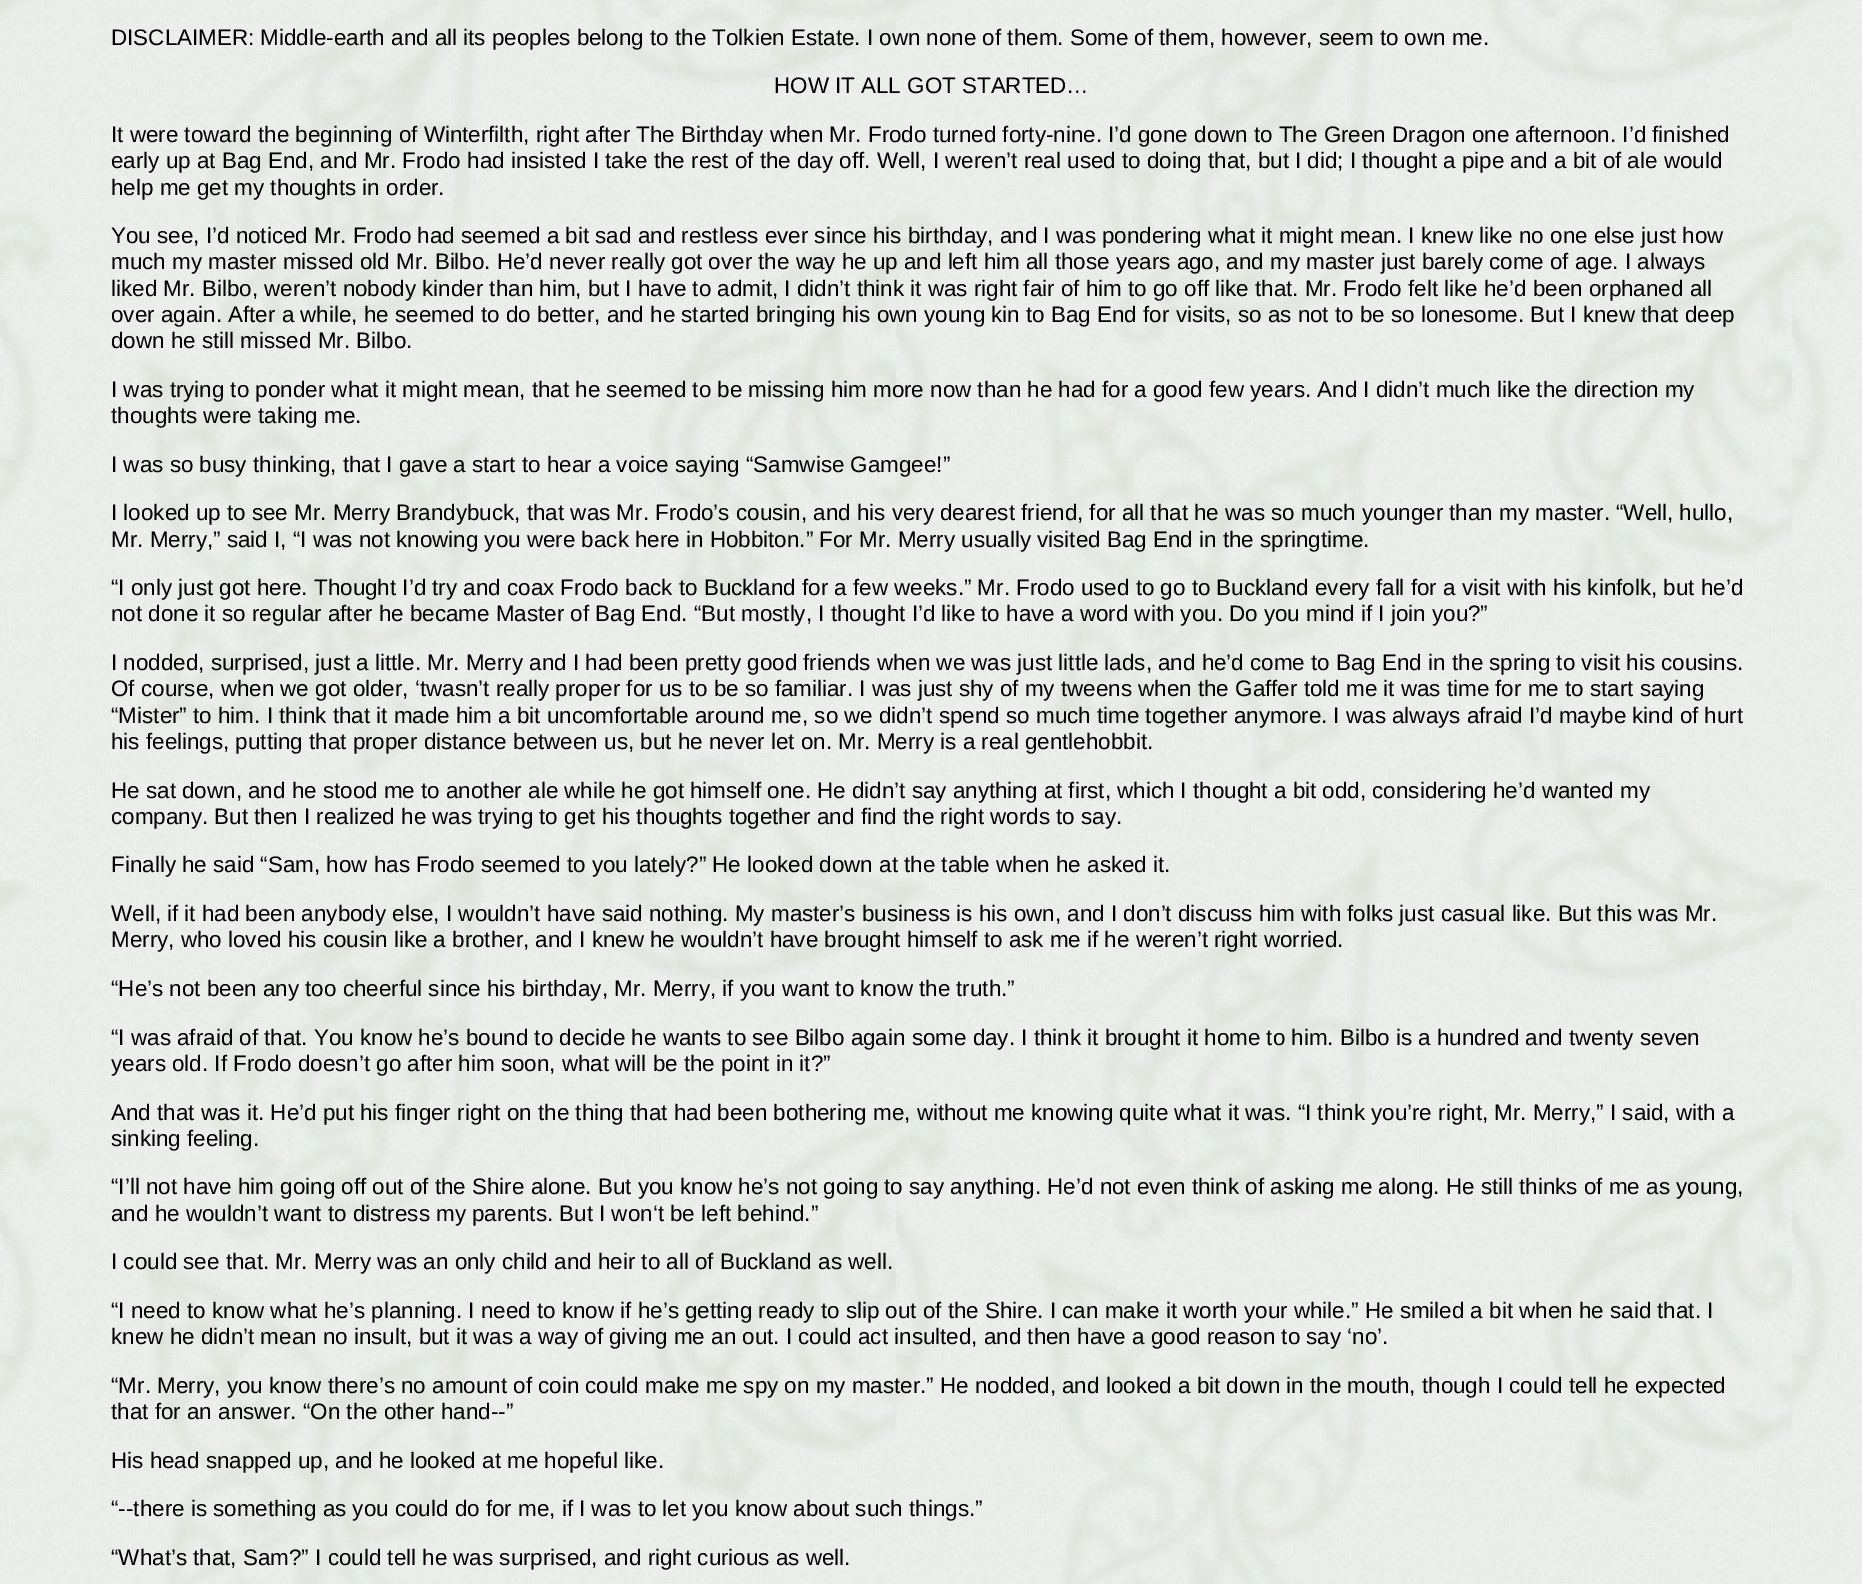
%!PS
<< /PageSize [1862 1584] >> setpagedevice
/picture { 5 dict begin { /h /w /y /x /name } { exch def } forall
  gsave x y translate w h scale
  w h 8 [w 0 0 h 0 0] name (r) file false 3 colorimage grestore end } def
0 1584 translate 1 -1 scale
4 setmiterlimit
1 setgray
0 0 1862 1584 rectfill
(img1.rgb) 0 0 1862 1584 picture
/LiberationSans-Regular [22.4 0 0 -22.4 0 0] selectfont
0 setgray
111 45 moveto (DISCLAIMER: Middle-earth and all its peoples belong to the Tolkien Estate. I own none of them. Some of them, however, seem to own me.) show
774 93 moveto (HOW IT ALL GOT STARTED…) show
111 142 moveto (It were toward the beginning of Winterfilth, right after The Birthday when Mr. Frodo turned forty-nine. I’d gone down to The Green Dragon one afternoon. I’d finished) show
111 168 moveto (early up at Bag End, and Mr. Frodo had insisted I take the rest of the day off. Well, I weren’t real used to doing that, but I did; I thought a pipe and a bit of ale would) show
111 195 moveto (help me get my thoughts in order.) show
111 243 moveto (You see, I’d noticed Mr. Frodo had seemed a bit sad and restless ever since his birthday, and I was pondering what it might mean. I knew like no one else just how) show
111 269 moveto (much my master missed old Mr. Bilbo. He’d never really got over the way he up and left him all those years ago, and my master just barely come of age. I always) show
111 296 moveto (liked Mr. Bilbo, weren’t nobody kinder than him, but I have to admit, I didn’t think it was right fair of him to go off like that. Mr. Frodo felt like he’d been orphaned all) show
111 322 moveto (over again. After a while, he seemed to do better, and he started bringing his own young kin to Bag End for visits, so as not to be so lonesome. But I knew that deep) show
111 348 moveto (down he still missed Mr. Bilbo.) show
111 397 moveto (I was trying to ponder what it might mean, that he seemed to be missing him more now than he had for a good few years. And I didn’t much like the direction my) show
111 423 moveto (thoughts were taking me.) show
111 472 moveto (I was so busy thinking, that I gave a start to hear a voice saying “Samwise Gamgee!”) show
111 520 moveto (I looked up to see Mr. Merry Brandybuck, that was Mr. Frodo’s cousin, and his very dearest friend, for all that he was so much younger than my master. “Well, hullo,) show
111 547 moveto (Mr. Merry,” said I, “I was not knowing you were back here in Hobbiton.” For Mr. Merry usually visited Bag End in the springtime.) show
111 595 moveto (“I only just got here. Thought I’d try and coax Frodo back to Buckland for a few weeks.” Mr. Frodo used to go to Buckland every fall for a visit with his kinfolk, but he’d) show
111 621 moveto (not done it so regular after he became Master of Bag End. “But mostly, I thought I’d like to have a word with you. Do you mind if I join you?”) show
111 670 moveto (I nodded, surprised, just a little. Mr. Merry and I had been pretty good friends when we was just little lads, and he’d come to Bag End in the spring to visit his cousins.) show
111 696 moveto (Of course, when we got older, ‘twasn’t really proper for us to be so familiar. I was just shy of my tweens when the Gaffer told me it was time for me to start saying) show
111 723 moveto (“Mister” to him. I think that it made him a bit uncomfortable around me, so we didn’t spend so much time together anymore. I was always afraid I’d maybe kind of hurt) show
111 749 moveto (his feelings, putting that proper distance between us, but he never let on. Mr. Merry is a real gentlehobbit.) show
111 798 moveto (He sat down, and he stood me to another ale while he got himself one. He didn’t say anything at first, which I thought a bit odd, considering he’d wanted my) show
111 824 moveto (company. But then I realized he was trying to get his thoughts together and find the right words to say.) show
111 872 moveto (Finally he said “Sam, how has Frodo seemed to you lately?” He looked down at the table when he asked it.) show
111 921 moveto (Well, if it had been anybody else, I wouldn’t have said nothing. My master’s business is his own, and I don’t discuss him with folks just casual like. But this was Mr.) show
111 947 moveto (Merry, who loved his cousin like a brother, and I knew he wouldn’t have brought himself to ask me if he weren’t right worried.) show
111 996 moveto (“He’s not been any too cheerful since his birthday, Mr. Merry, if you want to know the truth.”) show
111 1045 moveto (“I was afraid of that. You know he’s bound to decide he wants to see Bilbo again some day. I think it brought it home to him. Bilbo is a hundred and twenty seven) show
111 1071 moveto (years old. If Frodo doesn’t go after him soon, what will be the point in it?”) show
111 1120 moveto (And that was it. He’d put his finger right on the thing that had been bothering me, without me knowing quite what it was. “I think you’re right, Mr. Merry,” I said, with a) show
111 1146 moveto (sinking feeling.) show
111 1194 moveto (“I’ll not have him going off out of the Shire alone. But you know he’s not going to say anything. He’d not even think of asking me along. He still thinks of me as young,) show
111 1221 moveto (and he wouldn’t want to distress my parents. But I won‘t be left behind.”) show
111 1269 moveto (I could see that. Mr. Merry was an only child and heir to all of Buckland as well.) show
111 1318 moveto (“I need to know what he’s planning. I need to know if he’s getting ready to slip out of the Shire. I can make it worth your while.” He smiled a bit when he said that. I) show
111 1344 moveto (knew he didn’t mean no insult, but it was a way of giving me an out. I could act insulted, and then have a good reason to say ‘no’.) show
111 1393 moveto (“Mr. Merry, you know there’s no amount of coin could make me spy on my master.” He nodded, and looked a bit down in the mouth, though I could tell he expected) show
111 1419 moveto (that for an answer. “On the other hand--”) show
111 1468 moveto (His head snapped up, and he looked at me hopeful like.) show
111 1516 moveto (“--there is something as you could do for me, if I was to let you know about such things.”) show
111 1565 moveto (“What’s that, Sam?” I could tell he was surprised, and right curious as well.) show
showpage
